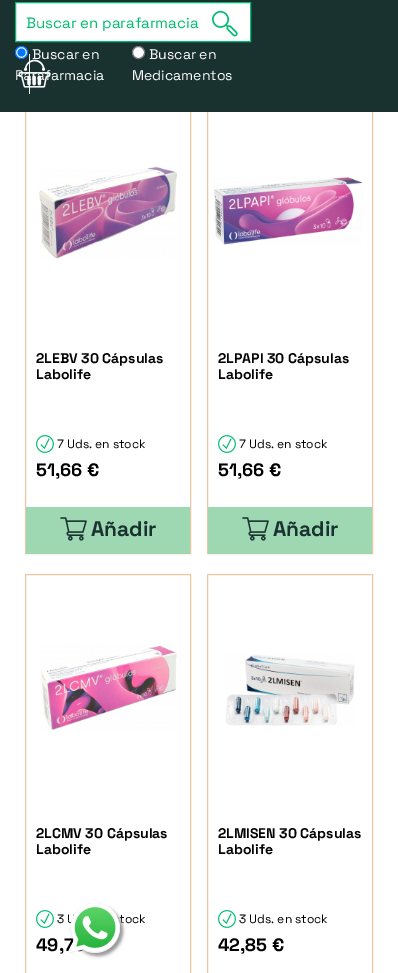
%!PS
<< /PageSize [398 973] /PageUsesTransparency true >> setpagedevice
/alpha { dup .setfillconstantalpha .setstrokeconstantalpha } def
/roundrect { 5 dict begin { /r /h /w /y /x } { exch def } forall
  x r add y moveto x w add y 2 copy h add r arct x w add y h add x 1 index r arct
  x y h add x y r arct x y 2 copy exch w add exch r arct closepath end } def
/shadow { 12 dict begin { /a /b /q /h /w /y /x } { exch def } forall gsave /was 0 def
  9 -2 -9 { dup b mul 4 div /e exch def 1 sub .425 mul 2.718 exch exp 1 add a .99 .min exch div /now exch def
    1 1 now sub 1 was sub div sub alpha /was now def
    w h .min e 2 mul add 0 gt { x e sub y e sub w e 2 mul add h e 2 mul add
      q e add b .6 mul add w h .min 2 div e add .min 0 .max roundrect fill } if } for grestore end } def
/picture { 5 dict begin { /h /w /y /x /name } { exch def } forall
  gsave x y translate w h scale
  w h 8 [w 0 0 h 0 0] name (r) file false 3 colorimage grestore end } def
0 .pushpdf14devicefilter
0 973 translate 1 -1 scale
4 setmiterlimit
1 setgray
0 0 398 973 rectfill
0.929 0.78 0.635 setrgbcolor
25.5 99.5 165 454 rectstroke
207.5 99.5 165 454 rectstroke
0.098 0.196 0.184 setrgbcolor
0 0 398 112 rectfill
1 setgray
newpath 15.5 2.5 moveto 250.5 2.5 lineto 250.5 41.5 lineto 15.5 41.5 lineto closepath gsave fill grestore
0 0.737 0.439 setrgbcolor
stroke
/SpaceGrotesk-Regular [15 0 0 -15 0 0] selectfont
26 28 moveto (Buscar en parafarmacia) show
(img1.rgb) 212 10 26 27 picture
1 setgray
newpath 21.5 52.5 6 0 360 arc closepath gsave fill grestore
0 0.459 1 setrgbcolor
stroke
newpath 21.5 52.5 4 0 360 arc closepath fill
/SpaceGrotesk-Regular [14 0 0 -14 0 0] selectfont
1 setgray
32 59 moveto (Buscar en) show
15 80 moveto (Parafarmacia) show
newpath 138.5 52.5 6 0 360 arc closepath gsave fill grestore
0.463 setgray
stroke
1 setgray
149 59 moveto (Buscar en) show
132 80 moveto (Medicamentos) show
0.929 setgray
29 54 1 40 rectfill
(img2.rgb) 18 59 33 29 picture
(img3.rgb) 39 166 138 93 picture
/SpaceGrotesk-Bold [14 0 0 -14 0 0] selectfont
0 setgray
36 363 moveto (2LEBV 30 Cápsulas) show
36 379 moveto (Labolife) show
(img4.rgb) 36 435 18 18 picture
/SpaceGrotesk-Regular [12 0 0 -12 0 0] selectfont
57 448 moveto (7 Uds. en stock) show
/SpaceGrotesk-Bold [18 0 0 -18 0 0] selectfont
36 476 moveto (51,66 €) show
0.62 0.847 0.702 setrgbcolor
26 507 164 47 rectfill
(img5.rgb) 60 517 27 24 picture
/SpaceGrotesk-Bold [21 0 0 -21 0 0] selectfont
0.098 0.196 0.184 setrgbcolor
91 536 moveto (Añadir) show
(img6.rgb) 214 177 149 68 picture
/SpaceGrotesk-Bold [14 0 0 -14 0 0] selectfont
0 setgray
218 363 moveto (2LPAPI 30 Cápsulas) show
218 379 moveto (Labolife) show
(img4.rgb) 218 435 18 18 picture
/SpaceGrotesk-Regular [12 0 0 -12 0 0] selectfont
239 448 moveto (7 Uds. en stock) show
/SpaceGrotesk-Bold [18 0 0 -18 0 0] selectfont
218 476 moveto (51,66 €) show
0.62 0.847 0.702 setrgbcolor
208 507 164 47 rectfill
(img5.rgb) 242 517 27 24 picture
/SpaceGrotesk-Bold [21 0 0 -21 0 0] selectfont
0.098 0.196 0.184 setrgbcolor
273 536 moveto (Añadir) show
0.929 0.78 0.635 setrgbcolor
25.5 574.5 165 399 rectstroke
(img7.rgb) 41 645 136 85 picture
/SpaceGrotesk-Bold [14 0 0 -14 0 0] selectfont
0 setgray
36 838 moveto (2LCMV 30 Cápsulas) show
36 854 moveto (Labolife) show
(img4.rgb) 36 910 18 18 picture
/SpaceGrotesk-Regular [12 0 0 -12 0 0] selectfont
57 923 moveto (3 U) show
119 923 moveto (tock) show
/SpaceGrotesk-Bold [18 0 0 -18 0 0] selectfont
36 951 moveto (49,7) show
0.929 0.78 0.635 setrgbcolor
207.5 574.5 165 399 rectstroke
(img8.rgb) 225 654 130 72 picture
/SpaceGrotesk-Bold [14 0 0 -14 0 0] selectfont
0 setgray
218 838 moveto (2LMISEN 30 Cápsulas) show
218 854 moveto (Labolife) show
(img4.rgb) 218 910 18 18 picture
/SpaceGrotesk-Regular [12 0 0 -12 0 0] selectfont
239 923 moveto (3 Uds. en stock) show
/SpaceGrotesk-Bold [18 0 0 -18 0 0] selectfont
218 951 moveto (42,85 €) show
0.6 setgray
73 906 50 50 25 1.5 1 shadow
(img9.rgb) 70 903 50 50 picture
.poppdf14devicefilter showpage
